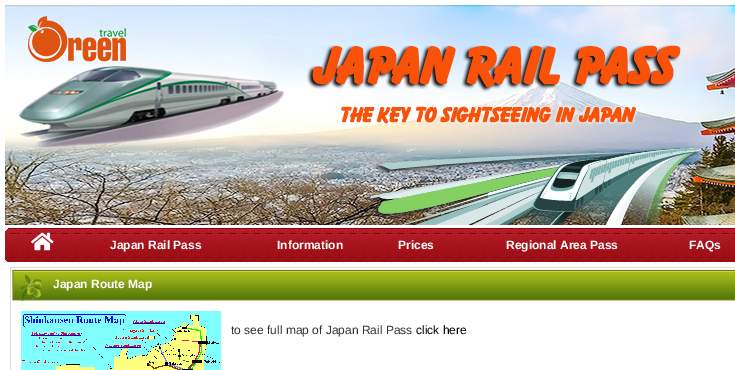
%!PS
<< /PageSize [735 370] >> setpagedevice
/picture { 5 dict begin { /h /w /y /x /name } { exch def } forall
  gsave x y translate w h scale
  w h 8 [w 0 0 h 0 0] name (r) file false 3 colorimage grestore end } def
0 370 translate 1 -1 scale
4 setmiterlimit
1 setgray
0 0 735 370 rectfill
(img1.rgb) 5 5 730 220 picture
(img2.rgb) 5 228 730 34 picture
(img3.rgb) 31 232 23 19 picture
/LiberationSans-Bold [12 0 0 -12 0 0] selectfont
110 249 moveto (Japan Rail Pass) show
277 249 moveto (Information) show
398 249 moveto (Prices) show
506 249 moveto (Regional Area Pass) show
689 249 moveto (FAQs) show
(img4.rgb) 10 267 33 34 picture
(img5.rgb) 43 267 692 34 picture
53 288 moveto (Japan Route Map) show
0.871 setgray
10 301 1 69 rectfill
(img6.rgb) 21 311 200 59 picture
/LiberationSans-Regular [12 0 0 -12 0 0] selectfont
0.2 setgray
231 334 moveto (to see full map of Japan Rail Pass) show
0 setgray
416 334 moveto (click here) show
showpage
